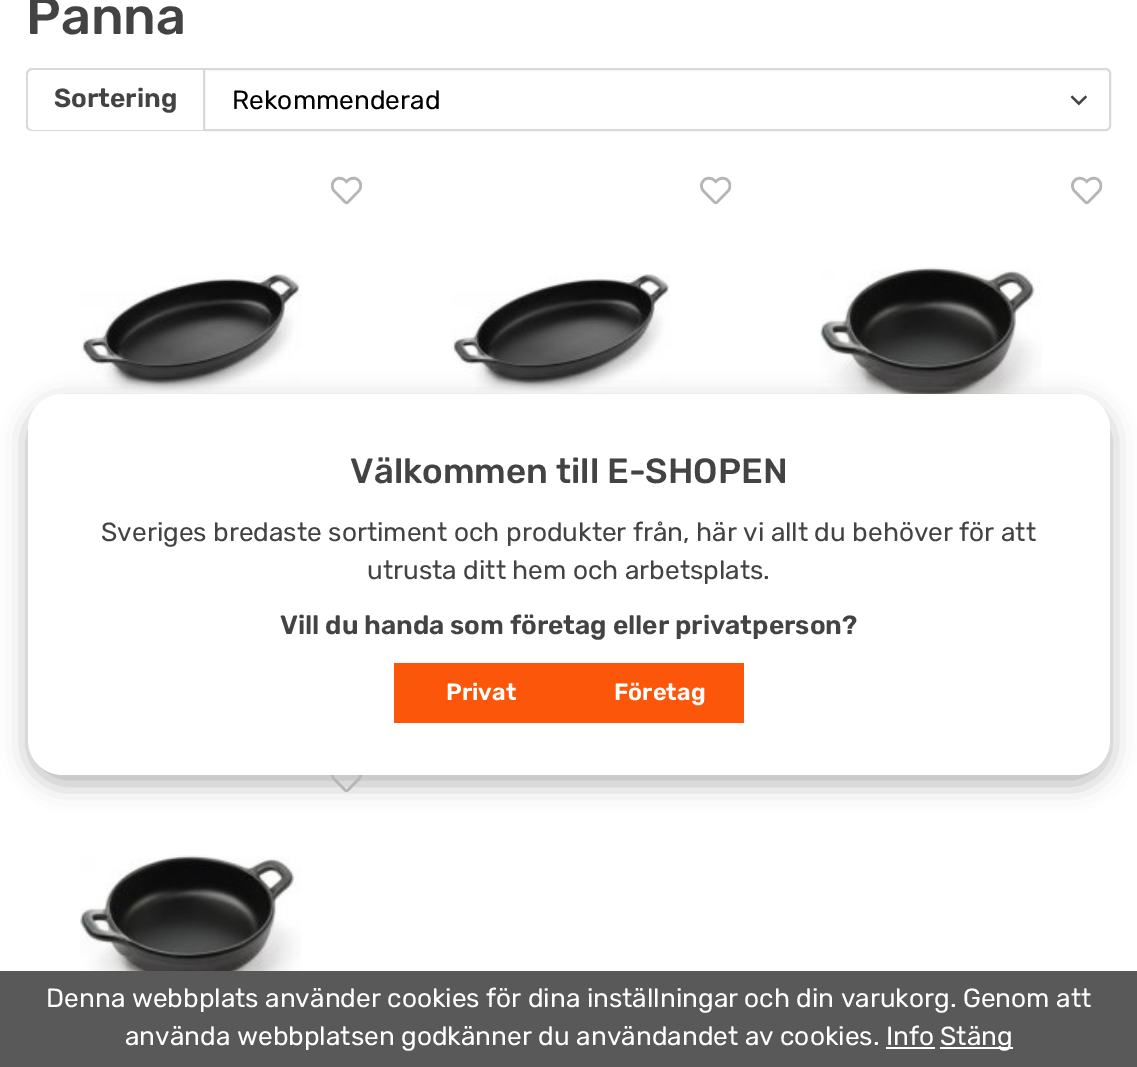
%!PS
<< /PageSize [1137 1067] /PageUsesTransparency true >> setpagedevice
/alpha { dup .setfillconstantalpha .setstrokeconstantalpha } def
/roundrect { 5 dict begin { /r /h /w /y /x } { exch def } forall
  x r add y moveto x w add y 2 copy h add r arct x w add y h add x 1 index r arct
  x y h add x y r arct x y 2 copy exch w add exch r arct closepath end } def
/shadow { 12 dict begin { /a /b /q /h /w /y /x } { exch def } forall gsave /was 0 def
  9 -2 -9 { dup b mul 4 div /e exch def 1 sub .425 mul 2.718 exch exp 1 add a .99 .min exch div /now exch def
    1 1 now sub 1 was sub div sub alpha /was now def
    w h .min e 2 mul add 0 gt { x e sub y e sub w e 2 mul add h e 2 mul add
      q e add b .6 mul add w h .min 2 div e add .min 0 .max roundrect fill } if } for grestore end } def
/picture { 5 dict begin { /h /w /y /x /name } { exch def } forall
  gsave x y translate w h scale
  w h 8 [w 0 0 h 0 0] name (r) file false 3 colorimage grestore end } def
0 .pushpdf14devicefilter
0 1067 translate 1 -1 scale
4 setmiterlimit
1 setgray
0 0 1137 1067 rectfill
/Rubik-Medium [52.5 0 0 -52.5 0 0] selectfont
0.263 setgray
26 34 moveto (Panna) show
0.851 setgray
newpath 32 68 moveto 203 68 lineto 203 131 lineto 32 131 lineto 29 131 26 129 26 126 curveto 26 74 lineto 26 71 29 68 32 68 curveto closepath 32 70 moveto 203 70 lineto 203 130 lineto 32 130 lineto 30 130 28 128 28 126 curveto 28 74 lineto 28 72 30 70 32 70 curveto closepath eofill
/Rubik-SemiBold [26.25 0 0 -26.25 0 0] selectfont
0.263 setgray
54 107 moveto (Sortering) show
0.851 setgray
2 setlinewidth
newpath 204 69 moveto 1106 69 lineto 1108 69 1110 71 1110 73 curveto 1110 126 lineto 1110 128 1108 130 1106 130 curveto 204 130 lineto closepath stroke
/Rubik-Regular [26.25 0 0 -26.25 0 0] selectfont
0 setgray
232 109 moveto (Rekommenderad) show
(img1.rgb) 1070 95 17 11 picture
(img2.rgb) 331 176 31 29 picture
(img3.rgb) 80 274 222 119 picture
(img4.rgb) 700 176 32 29 picture
(img5.rgb) 451 274 220 119 picture
(img4.rgb) 1071 176 32 29 picture
(img6.rgb) 820 267 222 127 picture
(img7.rgb) 331 775 31 18 picture
(img8.rgb) 80 855 221 116 picture
0.71 setgray
28 403 1082 381 35 13 1 shadow
1 setgray
28 394 1082 381 35 roundrect fill
/Rubik-Medium [35 0 0 -35 0 0] selectfont
0.263 setgray
350 483 moveto (Välkommen till E-SHOPEN) show
/Rubik-Regular [26.25 0 0 -26.25 0 0] selectfont
101 541 moveto (Sveriges bredaste sortiment och produkter från, här vi allt du behöver för att) show
367 579 moveto (utrusta ditt hem och arbetsplats.) show
/Rubik-SemiBold [26.25 0 0 -26.25 0 0] selectfont
280 634 moveto (Vill du handa som företag eller privatperson?) show
0.988 0.337 0.043 setrgbcolor
394 663 350 60 rectfill
/Rubik-SemiBold [23.5 0 0 -23.5 0 0] selectfont
1 setgray
446 700 moveto (Privat) show
614 700 moveto (Företag) show
0.349 setgray
0 971 1137 96 rectfill
/Rubik-Regular [26.25 0 0 -26.25 0 0] selectfont
1 setgray
46 1007 moveto (Denna webbplats använder cookies för dina inställningar och din varukorg. Genom att) show
125 1045 moveto (använda webbplatsen godkänner du användandet av cookies. Info) show
940 1047 73 2 rectfill
940 1045 moveto (Stäng) show
886 1047 49 2 rectfill
.poppdf14devicefilter showpage
